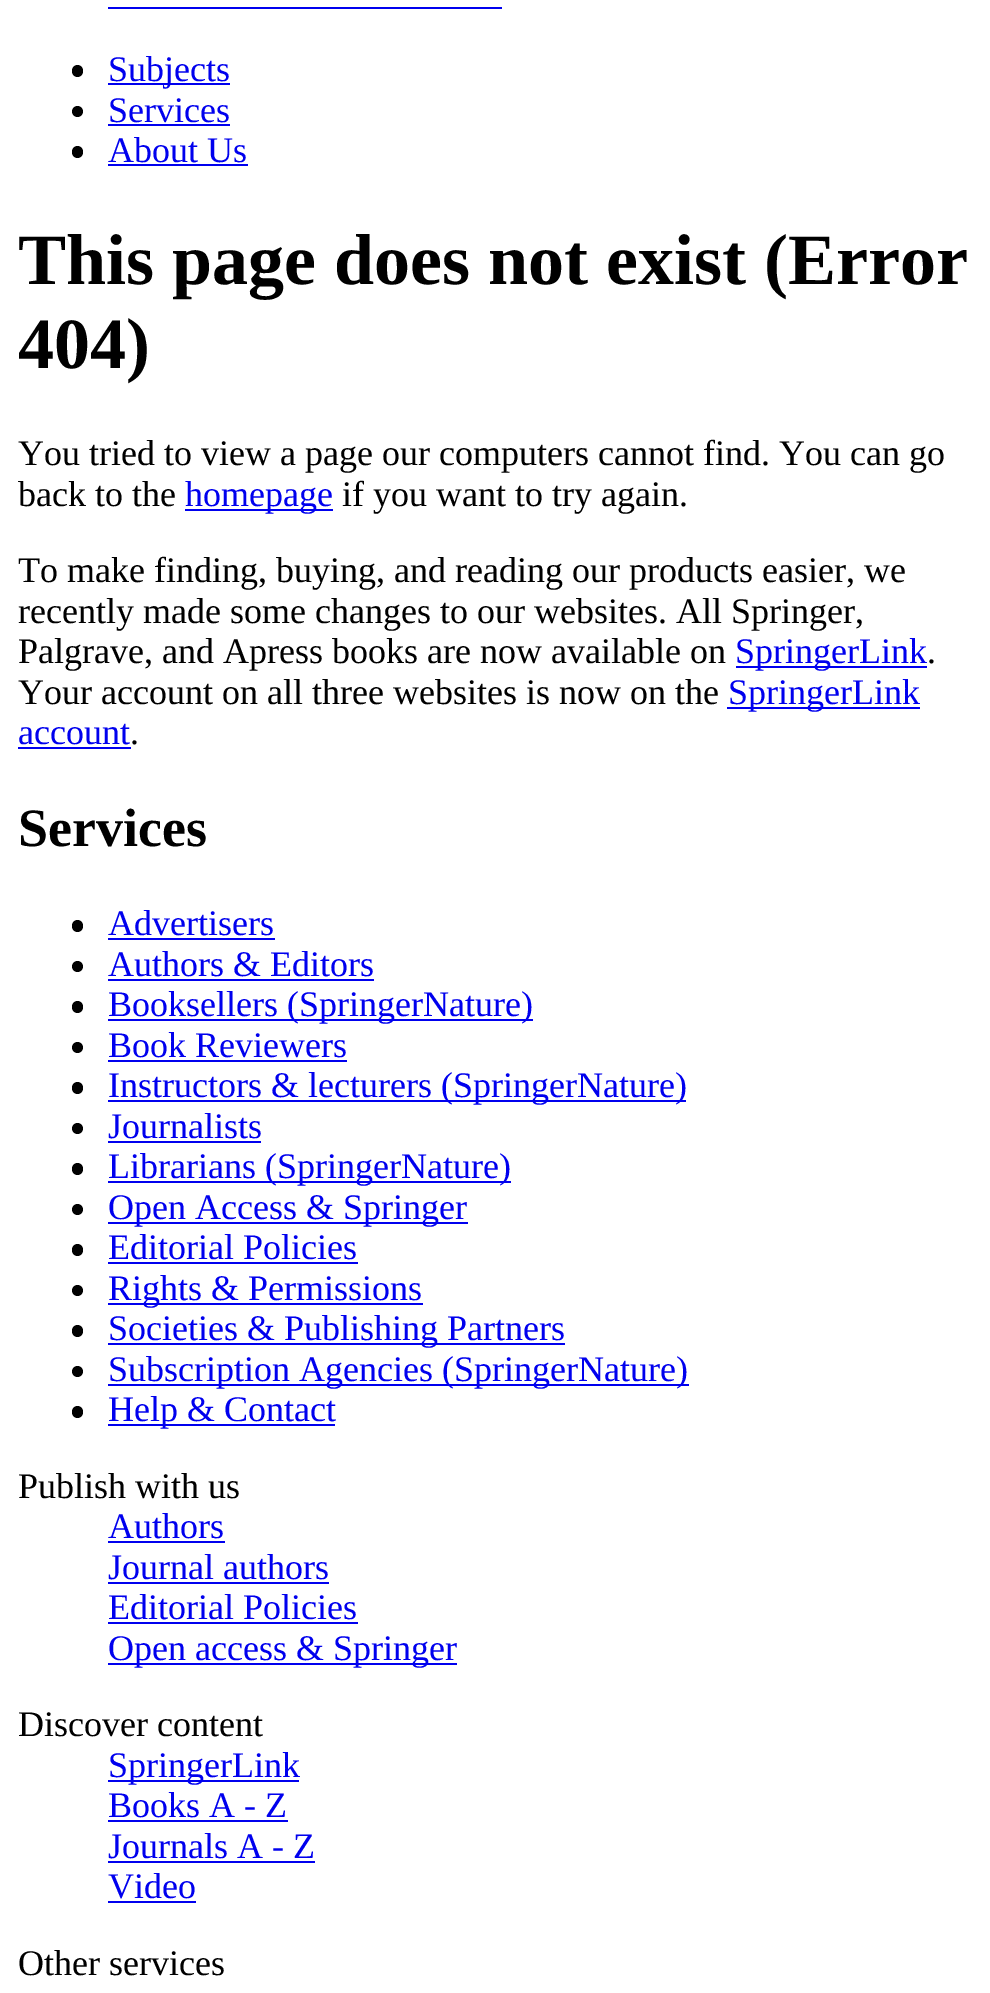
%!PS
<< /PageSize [990 1993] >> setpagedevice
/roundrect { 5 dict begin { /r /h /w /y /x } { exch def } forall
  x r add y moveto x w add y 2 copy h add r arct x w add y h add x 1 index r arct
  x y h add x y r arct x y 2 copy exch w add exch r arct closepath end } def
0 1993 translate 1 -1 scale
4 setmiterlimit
1 setgray
0 0 990 1993 rectfill
0 0 0.933 setrgbcolor
108 7 394 2 rectfill
0 setgray
72 65 11 12 5.5 roundrect fill
0 0 0.933 setrgbcolor
108 83 122 2 rectfill
/LiberationSerif-Regular [36 0 0 -36 0 0] selectfont
108 81 moveto (Subjects) show
0 setgray
newpath 77.5 111.5 5.5 0 360 arc closepath fill
0 0 0.933 setrgbcolor
108 122 moveto (Services) show
108 124 122 2 rectfill
0 setgray
72 146 11 12 5.5 roundrect fill
0 0 0.933 setrgbcolor
108 162 moveto (About Us) show
108 164 140 2 rectfill
/LiberationSerif-Bold [72 0 0 -72 0 0] selectfont
0 setgray
18 284 moveto (This page does not exist \(Error) show
18 368 moveto (404\)) show
/LiberationSerif-Regular [36 0 0 -36 0 0] selectfont
18 465 moveto (You tried to view a page our computers cannot find. You can go) show
18 506 moveto (back to the) show
0 0 0.933 setrgbcolor
185 509 148 2 rectfill
185 506 moveto (homepage) show
0 setgray
342 506 moveto (if you want to try again.) show
18 582 moveto (To make finding, buying, and reading our products easier, we) show
18 623 moveto (recently made some changes to our websites. All Springer,) show
18 663 moveto (Palgrave, and Apress books are now available on) show
0 0 0.933 setrgbcolor
736 666 191 2 rectfill
735 663 moveto (SpringerLink) show
0 setgray
927 663 moveto (.) show
18 704 moveto (Your account on all three websites is now on the) show
0 0 0.933 setrgbcolor
727 707 193 2 rectfill
728 704 moveto (SpringerLink) show
18 744 moveto (account) show
18 747 113 2 rectfill
0 setgray
130 744 moveto (.) show
/LiberationSerif-Bold [54 0 0 -54 0 0] selectfont
18 846 moveto (Services) show
72 920 11 12 5.5 roundrect fill
/LiberationSerif-Regular [36 0 0 -36 0 0] selectfont
0 0 0.933 setrgbcolor
108 935 moveto (Advertisers) show
108 938 167 2 rectfill
0 setgray
newpath 77.5 966.5 5.5 0 360 arc closepath fill
0 0 0.933 setrgbcolor
108 976 moveto (Authors & Editors) show
108 979 266 2 rectfill
0 setgray
72 1001 11 12 5.5 roundrect fill
0 0 0.933 setrgbcolor
108 1019 425 2 rectfill
108 1016 moveto (Booksellers \(SpringerNature\)) show
0 setgray
newpath 77.5 1047.5 5.5 0 360 arc closepath fill
0 0 0.933 setrgbcolor
108 1057 moveto (Book Reviewers) show
108 1060 239 2 rectfill
0 setgray
72 1082 11 12 5.5 roundrect fill
0 0 0.933 setrgbcolor
108 1100 578 2 rectfill
108 1097 moveto (Instructors & lecturers \(SpringerNature\)) show
0 setgray
newpath 77.5 1128.5 5.5 0 360 arc closepath fill
0 0 0.933 setrgbcolor
108 1138 moveto (Journalists) show
108 1141 153 2 rectfill
0 setgray
72 1163 11 12 5.5 roundrect fill
0 0 0.933 setrgbcolor
108 1181 403 2 rectfill
108 1178 moveto (Librarians \(SpringerNature\)) show
0 setgray
newpath 77.5 1209.5 5.5 0 360 arc closepath fill
0 0 0.933 setrgbcolor
108 1222 360 2 rectfill
108 1219 moveto (Open Access & Springer) show
0 setgray
72 1244 11 12 5.5 roundrect fill
0 0 0.933 setrgbcolor
108 1259 moveto (Editorial Policies) show
108 1262 250 2 rectfill
0 setgray
newpath 77.5 1290.5 5.5 0 360 arc closepath fill
0 0 0.933 setrgbcolor
108 1303 315 2 rectfill
108 1300 moveto (Rights & Permissions) show
0 setgray
72 1325 11 12 5.5 roundrect fill
0 0 0.933 setrgbcolor
108 1343 457 2 rectfill
108 1340 moveto (Societies & Publishing Partners) show
0 setgray
newpath 77.5 1371.5 5.5 0 360 arc closepath fill
0 0 0.933 setrgbcolor
108 1384 581 2 rectfill
108 1381 moveto (Subscription Agencies \(SpringerNature\)) show
0 setgray
72 1406 11 12 5.5 roundrect fill
0 0 0.933 setrgbcolor
108 1424 227 2 rectfill
108 1421 moveto (Help & Contact) show
0 setgray
18 1498 moveto (Publish with us) show
0 0 0.933 setrgbcolor
108 1538 moveto (Authors) show
108 1541 117 2 rectfill
108 1579 moveto (Journal authors) show
108 1582 221 2 rectfill
108 1619 moveto (Editorial Policies) show
108 1622 250 2 rectfill
108 1663 349 2 rectfill
108 1660 moveto (Open access & Springer) show
0 setgray
18 1736 moveto (Discover content) show
0 0 0.933 setrgbcolor
108 1780 191 2 rectfill
108 1777 moveto (SpringerLink) show
108 1817 moveto (Books A - Z) show
108 1820 180 2 rectfill
108 1858 moveto (Journals A - Z) show
108 1861 207 2 rectfill
108 1898 moveto (Video) show
108 1901 88 2 rectfill
0 setgray
18 1975 moveto (Other services) show
showpage
